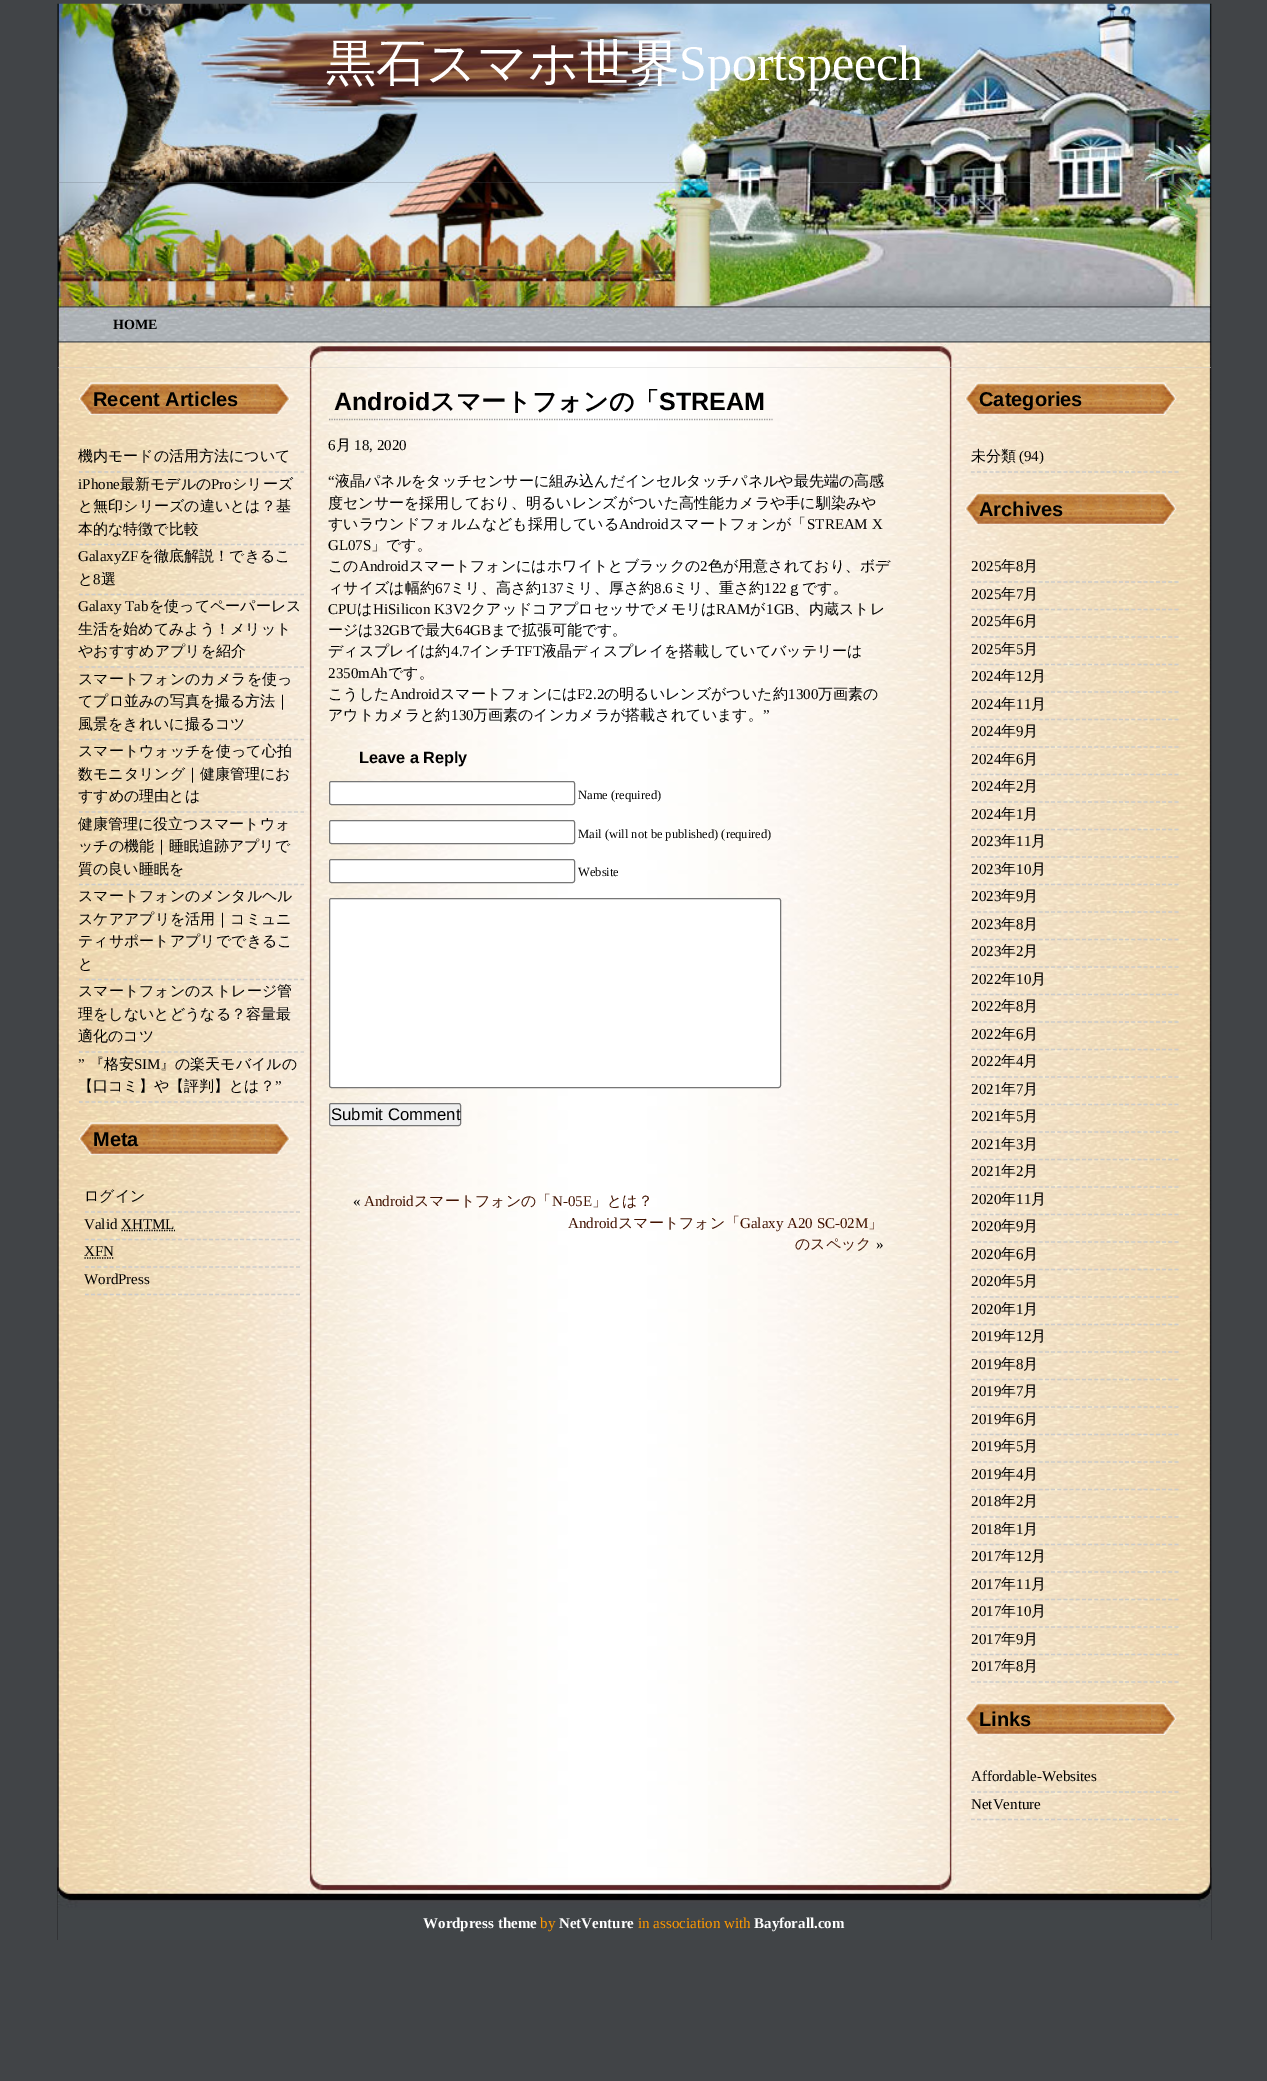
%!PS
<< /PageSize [1267 2081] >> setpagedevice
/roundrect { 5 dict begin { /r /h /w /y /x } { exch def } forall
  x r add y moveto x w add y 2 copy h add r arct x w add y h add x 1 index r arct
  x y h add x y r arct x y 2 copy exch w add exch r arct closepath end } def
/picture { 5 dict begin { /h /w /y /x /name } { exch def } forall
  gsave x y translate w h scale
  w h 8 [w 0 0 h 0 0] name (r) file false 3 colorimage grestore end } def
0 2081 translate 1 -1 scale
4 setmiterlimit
0.255 0.267 0.278 setrgbcolor
0 0 1267 2081 rectfill
(img1.rgb) 57 3 1155 180 picture
/WenQuanYiZenHei-Medium [50 0 0 -50 0 0] selectfont
1 setgray
326 80 moveto (黒石スマホ世界) show
/LiberationSerif-Regular [50 0 0 -50 0 0] selectfont
679 80 moveto (Sportspeech) show
(img3.rgb) 57 367 1155 1573 picture
0.816 setgray
58 367 1153 1 rectfill
(img2.rgb) 57 182 1155 186 picture
/LiberationSerif-Bold [14 0 0 -14 0 0] selectfont
0 setgray
113 329 moveto (HOME) show
(img4.rgb) 78 382 212 33 picture
/LiberationSans-Bold [20 0 0 -20 0 0] selectfont
93 406 moveto (Recent Articles) show
0.8 setgray
1.2 setlinewidth
[3.75 2.58] 0 setdash
newpath 79 472 moveto 304 472 lineto stroke
/WenQuanYiZenHei-Medium [15 0 0 -15 0 0] selectfont
0 setgray
78 461 moveto (機内モードの活用方法について) show
0.8 setgray
newpath 79 544.5 moveto 304 544.5 lineto stroke
/LiberationSerif-Regular [15 0 0 -15 0 0] selectfont
0 setgray
78 489 moveto (iPhone) show
/WenQuanYiZenHei-Medium [15 0 0 -15 0 0] selectfont
120 489 moveto (最新モデルの) show
/LiberationSerif-Regular [15 0 0 -15 0 0] selectfont
211 489 moveto (Pro) show
/WenQuanYiZenHei-Medium [15 0 0 -15 0 0] selectfont
232 489 moveto (シリーズ) show
78 511 moveto (と無印シリーズの違いとは？基) show
78 534 moveto (本的な特徴で比較) show
0.8 setgray
newpath 79 594.5 moveto 304 594.5 lineto stroke
/LiberationSerif-Regular [15 0 0 -15 0 0] selectfont
0 setgray
78 561 moveto (GalaxyZF) show
/WenQuanYiZenHei-Medium [15 0 0 -15 0 0] selectfont
139 561 moveto (を徹底解説！できるこ) show
78 584 moveto (と) show
/LiberationSerif-Regular [15 0 0 -15 0 0] selectfont
93 584 moveto (8) show
/WenQuanYiZenHei-Medium [15 0 0 -15 0 0] selectfont
101 584 moveto (選) show
0.8 setgray
newpath 79 667 moveto 304 667 lineto stroke
/LiberationSerif-Regular [15 0 0 -15 0 0] selectfont
0 setgray
78 611 moveto (Galaxy Tab) show
/WenQuanYiZenHei-Medium [15 0 0 -15 0 0] selectfont
149 611 moveto (を使ってペーパーレス) show
78 634 moveto (生活を始めてみよう！メリット) show
78 656 moveto (やおすすめアプリを紹介) show
0.8 setgray
newpath 79 739.5 moveto 304 739.5 lineto stroke
0 setgray
78 684 moveto (スマートフォンのカメラを使っ) show
78 706 moveto (てプロ並みの写真を撮る方法｜) show
78 729 moveto (風景をきれいに撮るコツ) show
0.8 setgray
newpath 79 812 moveto 304 812 lineto stroke
0 setgray
78 756 moveto (スマートウォッチを使って心拍) show
78 779 moveto (数モニタリング｜健康管理にお) show
78 801 moveto (すすめの理由とは) show
0.8 setgray
newpath 79 884.5 moveto 304 884.5 lineto stroke
0 setgray
78 829 moveto (健康管理に役立つスマートウォ) show
78 851 moveto (ッチの機能｜睡眠追跡アプリで) show
78 874 moveto (質の良い睡眠を) show
0.8 setgray
newpath 79 979.5 moveto 304 979.5 lineto stroke
0 setgray
78 901 moveto (スマートフォンのメンタルヘル) show
78 924 moveto (スケアアプリを活用｜コミュニ) show
78 946 moveto (ティサポートアプリでできるこ) show
78 969 moveto (と) show
0.8 setgray
newpath 79 1052 moveto 304 1052 lineto stroke
0 setgray
78 996 moveto (スマートフォンのストレージ管) show
78 1019 moveto (理をしないとどうなる？容量最) show
78 1041 moveto (適化のコツ) show
0.8 setgray
newpath 79 1102 moveto 304 1102 lineto stroke
/LiberationSerif-Regular [15 0 0 -15 0 0] selectfont
0 setgray
78 1069 moveto (”) show
/WenQuanYiZenHei-Medium [15 0 0 -15 0 0] selectfont
89 1069 moveto (『格安) show
/LiberationSerif-Regular [15 0 0 -15 0 0] selectfont
134 1069 moveto (SIM) show
/WenQuanYiZenHei-Medium [15 0 0 -15 0 0] selectfont
160 1069 moveto (』の楽天モバイルの) show
78 1091 moveto (【口コミ】や【評判】とは？) show
/LiberationSerif-Regular [15 0 0 -15 0 0] selectfont
275 1091 moveto (”) show
(img5.rgb) 78 1122 212 33 picture
/LiberationSans-Bold [20 0 0 -20 0 0] selectfont
93 1146 moveto (Meta) show
0.8 setgray
[3.75 2.46] 0 setdash
newpath 85 1212 moveto 300 1212 lineto stroke
/WenQuanYiZenHei-Medium [15 0 0 -15 0 0] selectfont
0 setgray
84 1201 moveto (ログイン) show
0.8 setgray
newpath 85 1239.5 moveto 300 1239.5 lineto stroke
/LiberationSerif-Regular [15 0 0 -15 0 0] selectfont
0 setgray
84 1229 moveto (Valid XHTML) show
[1.25 1.25] 0 setdash
newpath 121.5 1230.5 moveto 175 1230.5 lineto stroke
0.8 setgray
[3.75 2.46] 0 setdash
newpath 85 1267 moveto 300 1267 lineto stroke
0 setgray
84 1256 moveto (XFN) show
[1.25 1.25] 0 setdash
newpath 84.5 1258 moveto 114.5 1258 lineto stroke
0.8 setgray
[3.75 2.46] 0 setdash
newpath 85 1294.5 moveto 300 1294.5 lineto stroke
0 setgray
84 1284 moveto (WordPress) show
0.6 setgray
[1.25 1.25] 0 setdash
newpath 329 419.5 moveto 772.5 419.5 lineto stroke
/LiberationSans-Bold [25 0 0 -25 0 0] selectfont
0 setgray
334 410 moveto (Android) show
/WenQuanYiZenHei-Bold [25 0 0 -25 0 0] selectfont
430 410 moveto (スマートフォンの「) show
/LiberationSans-Bold [25 0 0 -25 0 0] selectfont
659 410 moveto (STREAM) show
/LiberationSerif-Regular [15 0 0 -15 0 0] selectfont
328 450 moveto (6) show
/WenQuanYiZenHei-Medium [15 0 0 -15 0 0] selectfont
336 450 moveto (月) show
/LiberationSerif-Regular [15 0 0 -15 0 0] selectfont
354 450 moveto (18, 2020) show
328 486 moveto (“) show
/WenQuanYiZenHei-Medium [15 0 0 -15 0 0] selectfont
335 486 moveto (液晶パネルをタッチセンサーに組み込んだインセルタッチパネルや最先端の高感) show
328 508 moveto (度センサーを採用しており、明るいレンズがついた高性能カメラや手に馴染みや) show
328 529 moveto (すいラウンドフォルムなども採用している) show
/LiberationSerif-Regular [15 0 0 -15 0 0] selectfont
619 529 moveto (Android) show
/WenQuanYiZenHei-Medium [15 0 0 -15 0 0] selectfont
669 529 moveto (スマートフォンが「) show
/LiberationSerif-Regular [15 0 0 -15 0 0] selectfont
807 529 moveto (STREAM X) show
328 550 moveto (GL07S) show
/WenQuanYiZenHei-Medium [15 0 0 -15 0 0] selectfont
371 550 moveto (」です。) show
328 571 moveto (この) show
/LiberationSerif-Regular [15 0 0 -15 0 0] selectfont
359 571 moveto (Android) show
/WenQuanYiZenHei-Medium [15 0 0 -15 0 0] selectfont
409 571 moveto (スマートフォンにはホワイトとブラックの) show
/LiberationSerif-Regular [15 0 0 -15 0 0] selectfont
700 571 moveto (2) show
/WenQuanYiZenHei-Medium [15 0 0 -15 0 0] selectfont
708 571 moveto (色が用意されており、ボデ) show
328 593 moveto (ィサイズは幅約) show
/LiberationSerif-Regular [15 0 0 -15 0 0] selectfont
435 593 moveto (67) show
/WenQuanYiZenHei-Medium [15 0 0 -15 0 0] selectfont
450 593 moveto (ミリ、高さ約) show
/LiberationSerif-Regular [15 0 0 -15 0 0] selectfont
541 593 moveto (137) show
/WenQuanYiZenHei-Medium [15 0 0 -15 0 0] selectfont
563 593 moveto (ミリ、厚さ約) show
/LiberationSerif-Regular [15 0 0 -15 0 0] selectfont
654 593 moveto (8.6) show
/WenQuanYiZenHei-Medium [15 0 0 -15 0 0] selectfont
673 593 moveto (ミリ、重さ約) show
/LiberationSerif-Regular [15 0 0 -15 0 0] selectfont
764 593 moveto (122) show
/WenQuanYiZenHei-Medium [15 0 0 -15 0 0] selectfont
787 593 moveto (ｇです。) show
/LiberationSerif-Regular [15 0 0 -15 0 0] selectfont
328 614 moveto (CPU) show
/WenQuanYiZenHei-Medium [15 0 0 -15 0 0] selectfont
357 614 moveto (は) show
/LiberationSerif-Regular [15 0 0 -15 0 0] selectfont
373 614 moveto (HiSilicon K3V2) show
/WenQuanYiZenHei-Medium [15 0 0 -15 0 0] selectfont
471 614 moveto (クアッドコアプロセッサでメモリは) show
/LiberationSerif-Regular [15 0 0 -15 0 0] selectfont
716 614 moveto (RAM) show
/WenQuanYiZenHei-Medium [15 0 0 -15 0 0] selectfont
750 614 moveto (が) show
/LiberationSerif-Regular [15 0 0 -15 0 0] selectfont
766 614 moveto (1GB) show
/WenQuanYiZenHei-Medium [15 0 0 -15 0 0] selectfont
794 614 moveto (、内蔵ストレ) show
328 635 moveto (ージは) show
/LiberationSerif-Regular [15 0 0 -15 0 0] selectfont
374 635 moveto (32GB) show
/WenQuanYiZenHei-Medium [15 0 0 -15 0 0] selectfont
410 635 moveto (で最大) show
/LiberationSerif-Regular [15 0 0 -15 0 0] selectfont
455 635 moveto (64GB) show
/WenQuanYiZenHei-Medium [15 0 0 -15 0 0] selectfont
491 635 moveto (まで拡張可能です。) show
328 656 moveto (ディスプレイは約) show
/LiberationSerif-Regular [15 0 0 -15 0 0] selectfont
451 656 moveto (4.7) show
/WenQuanYiZenHei-Medium [15 0 0 -15 0 0] selectfont
469 656 moveto (インチ) show
/LiberationSerif-Regular [15 0 0 -15 0 0] selectfont
515 656 moveto (TFT) show
/WenQuanYiZenHei-Medium [15 0 0 -15 0 0] selectfont
542 656 moveto (液晶ディスプレイを搭載していてバッテリーは) show
/LiberationSerif-Regular [15 0 0 -15 0 0] selectfont
328 678 moveto (2350mAh) show
/WenQuanYiZenHei-Medium [15 0 0 -15 0 0] selectfont
388 678 moveto (です。) show
328 699 moveto (こうした) show
/LiberationSerif-Regular [15 0 0 -15 0 0] selectfont
390 699 moveto (Android) show
/WenQuanYiZenHei-Medium [15 0 0 -15 0 0] selectfont
440 699 moveto (スマートフォンには) show
/LiberationSerif-Regular [15 0 0 -15 0 0] selectfont
577 699 moveto (F2.2) show
/WenQuanYiZenHei-Medium [15 0 0 -15 0 0] selectfont
604 699 moveto (の明るいレンズがついた約) show
/LiberationSerif-Regular [15 0 0 -15 0 0] selectfont
788 699 moveto (1300) show
/WenQuanYiZenHei-Medium [15 0 0 -15 0 0] selectfont
818 699 moveto (万画素の) show
328 720 moveto (アウトカメラと約) show
/LiberationSerif-Regular [15 0 0 -15 0 0] selectfont
451 720 moveto (130) show
/WenQuanYiZenHei-Medium [15 0 0 -15 0 0] selectfont
473 720 moveto (万画素のインカメラが搭載されています。) show
/LiberationSerif-Regular [15 0 0 -15 0 0] selectfont
763 720 moveto (”) show
/LiberationSans-Bold [16.25 0 0 -16.25 0 0] selectfont
359 763 moveto (Leave a Reply) show
1 setgray
329.5 781.5 245 23 2 roundrect gsave fill grestore
0.463 setgray
1 setlinewidth
[] 0 setdash
stroke
/LiberationSerif-Regular [12.5 0 0 -12.5 0 0] selectfont
0 setgray
578 799 moveto (Name \(required\)) show
1 setgray
329.5 820.5 245 23 2 roundrect gsave fill grestore
0.463 setgray
stroke
0 setgray
578 838 moveto (Mail \(will not be published\) \(required\)) show
1 setgray
329.5 859.5 245 23 2 roundrect gsave fill grestore
0.463 setgray
stroke
0 setgray
578 876 moveto (Website) show
1 setgray
329.5 898.5 451 189 2 roundrect gsave fill grestore
0.463 setgray
stroke
0.937 setgray
329.5 1103.5 131 22 2 roundrect gsave fill grestore
0.463 setgray
stroke
/LiberationSans-Regular [16.75 0 0 -16.75 0 0] selectfont
0 setgray
331 1120 moveto (Submit Comment) show
/LiberationSerif-Regular [15 0 0 -15 0 0] selectfont
353 1206 moveto («) show
0.259 0.071 0 setrgbcolor
364 1206 moveto (Android) show
/WenQuanYiZenHei-Medium [15 0 0 -15 0 0] selectfont
414 1206 moveto (スマートフォンの「) show
/LiberationSerif-Regular [15 0 0 -15 0 0] selectfont
552 1206 moveto (N-05E) show
/WenQuanYiZenHei-Medium [15 0 0 -15 0 0] selectfont
592 1206 moveto (」とは？) show
/LiberationSerif-Regular [15 0 0 -15 0 0] selectfont
568 1228 moveto (Android) show
/WenQuanYiZenHei-Medium [15 0 0 -15 0 0] selectfont
618 1228 moveto (スマートフォン「) show
/LiberationSerif-Regular [15 0 0 -15 0 0] selectfont
740 1228 moveto (Galaxy A20 SC-02M) show
/WenQuanYiZenHei-Medium [15 0 0 -15 0 0] selectfont
868 1228 moveto (」) show
795 1249 moveto (のスペック) show
/LiberationSerif-Regular [15 0 0 -15 0 0] selectfont
0 setgray
876 1249 moveto (») show
(img6.rgb) 965 382 212 33 picture
/LiberationSans-Bold [20 0 0 -20 0 0] selectfont
979 406 moveto (Categories) show
0.8 setgray
1.2 setlinewidth
[3.75 2.42] 0 setdash
newpath 971 472 moveto 1179 472 lineto stroke
/WenQuanYiZenHei-Medium [15 0 0 -15 0 0] selectfont
0 setgray
971 461 moveto (未分類) show
/LiberationSerif-Regular [15 0 0 -15 0 0] selectfont
1019 461 moveto (\(94\)) show
(img7.rgb) 965 492 212 33 picture
/LiberationSans-Bold [20 0 0 -20 0 0] selectfont
979 516 moveto (Archives) show
0.8 setgray
newpath 971 582 moveto 1179 582 lineto stroke
/LiberationSerif-Regular [15 0 0 -15 0 0] selectfont
0 setgray
971 571 moveto (2025) show
/WenQuanYiZenHei-Medium [15 0 0 -15 0 0] selectfont
1001 571 moveto (年) show
/LiberationSerif-Regular [15 0 0 -15 0 0] selectfont
1016 571 moveto (8) show
/WenQuanYiZenHei-Medium [15 0 0 -15 0 0] selectfont
1023 571 moveto (月) show
0.8 setgray
newpath 971 609.5 moveto 1179 609.5 lineto stroke
/LiberationSerif-Regular [15 0 0 -15 0 0] selectfont
0 setgray
971 599 moveto (2025) show
/WenQuanYiZenHei-Medium [15 0 0 -15 0 0] selectfont
1001 599 moveto (年) show
/LiberationSerif-Regular [15 0 0 -15 0 0] selectfont
1016 599 moveto (7) show
/WenQuanYiZenHei-Medium [15 0 0 -15 0 0] selectfont
1023 599 moveto (月) show
0.8 setgray
newpath 971 637 moveto 1179 637 lineto stroke
/LiberationSerif-Regular [15 0 0 -15 0 0] selectfont
0 setgray
971 626 moveto (2025) show
/WenQuanYiZenHei-Medium [15 0 0 -15 0 0] selectfont
1001 626 moveto (年) show
/LiberationSerif-Regular [15 0 0 -15 0 0] selectfont
1016 626 moveto (6) show
/WenQuanYiZenHei-Medium [15 0 0 -15 0 0] selectfont
1023 626 moveto (月) show
0.8 setgray
newpath 971 664.5 moveto 1179 664.5 lineto stroke
/LiberationSerif-Regular [15 0 0 -15 0 0] selectfont
0 setgray
971 654 moveto (2025) show
/WenQuanYiZenHei-Medium [15 0 0 -15 0 0] selectfont
1001 654 moveto (年) show
/LiberationSerif-Regular [15 0 0 -15 0 0] selectfont
1016 654 moveto (5) show
/WenQuanYiZenHei-Medium [15 0 0 -15 0 0] selectfont
1023 654 moveto (月) show
0.8 setgray
newpath 971 692 moveto 1179 692 lineto stroke
/LiberationSerif-Regular [15 0 0 -15 0 0] selectfont
0 setgray
971 681 moveto (2024) show
/WenQuanYiZenHei-Medium [15 0 0 -15 0 0] selectfont
1001 681 moveto (年) show
/LiberationSerif-Regular [15 0 0 -15 0 0] selectfont
1016 681 moveto (12) show
/WenQuanYiZenHei-Medium [15 0 0 -15 0 0] selectfont
1031 681 moveto (月) show
0.8 setgray
newpath 971 719.5 moveto 1179 719.5 lineto stroke
/LiberationSerif-Regular [15 0 0 -15 0 0] selectfont
0 setgray
971 709 moveto (2024) show
/WenQuanYiZenHei-Medium [15 0 0 -15 0 0] selectfont
1001 709 moveto (年) show
/LiberationSerif-Regular [15 0 0 -15 0 0] selectfont
1016 709 moveto (11) show
/WenQuanYiZenHei-Medium [15 0 0 -15 0 0] selectfont
1031 709 moveto (月) show
0.8 setgray
newpath 971 747 moveto 1179 747 lineto stroke
/LiberationSerif-Regular [15 0 0 -15 0 0] selectfont
0 setgray
971 736 moveto (2024) show
/WenQuanYiZenHei-Medium [15 0 0 -15 0 0] selectfont
1001 736 moveto (年) show
/LiberationSerif-Regular [15 0 0 -15 0 0] selectfont
1016 736 moveto (9) show
/WenQuanYiZenHei-Medium [15 0 0 -15 0 0] selectfont
1023 736 moveto (月) show
0.8 setgray
newpath 971 774.5 moveto 1179 774.5 lineto stroke
/LiberationSerif-Regular [15 0 0 -15 0 0] selectfont
0 setgray
971 764 moveto (2024) show
/WenQuanYiZenHei-Medium [15 0 0 -15 0 0] selectfont
1001 764 moveto (年) show
/LiberationSerif-Regular [15 0 0 -15 0 0] selectfont
1016 764 moveto (6) show
/WenQuanYiZenHei-Medium [15 0 0 -15 0 0] selectfont
1023 764 moveto (月) show
0.8 setgray
newpath 971 802 moveto 1179 802 lineto stroke
/LiberationSerif-Regular [15 0 0 -15 0 0] selectfont
0 setgray
971 791 moveto (2024) show
/WenQuanYiZenHei-Medium [15 0 0 -15 0 0] selectfont
1001 791 moveto (年) show
/LiberationSerif-Regular [15 0 0 -15 0 0] selectfont
1016 791 moveto (2) show
/WenQuanYiZenHei-Medium [15 0 0 -15 0 0] selectfont
1023 791 moveto (月) show
0.8 setgray
newpath 971 829.5 moveto 1179 829.5 lineto stroke
/LiberationSerif-Regular [15 0 0 -15 0 0] selectfont
0 setgray
971 819 moveto (2024) show
/WenQuanYiZenHei-Medium [15 0 0 -15 0 0] selectfont
1001 819 moveto (年) show
/LiberationSerif-Regular [15 0 0 -15 0 0] selectfont
1016 819 moveto (1) show
/WenQuanYiZenHei-Medium [15 0 0 -15 0 0] selectfont
1023 819 moveto (月) show
0.8 setgray
newpath 971 857 moveto 1179 857 lineto stroke
/LiberationSerif-Regular [15 0 0 -15 0 0] selectfont
0 setgray
971 846 moveto (2023) show
/WenQuanYiZenHei-Medium [15 0 0 -15 0 0] selectfont
1001 846 moveto (年) show
/LiberationSerif-Regular [15 0 0 -15 0 0] selectfont
1016 846 moveto (11) show
/WenQuanYiZenHei-Medium [15 0 0 -15 0 0] selectfont
1031 846 moveto (月) show
0.8 setgray
newpath 971 884.5 moveto 1179 884.5 lineto stroke
/LiberationSerif-Regular [15 0 0 -15 0 0] selectfont
0 setgray
971 874 moveto (2023) show
/WenQuanYiZenHei-Medium [15 0 0 -15 0 0] selectfont
1001 874 moveto (年) show
/LiberationSerif-Regular [15 0 0 -15 0 0] selectfont
1016 874 moveto (10) show
/WenQuanYiZenHei-Medium [15 0 0 -15 0 0] selectfont
1031 874 moveto (月) show
0.8 setgray
newpath 971 912 moveto 1179 912 lineto stroke
/LiberationSerif-Regular [15 0 0 -15 0 0] selectfont
0 setgray
971 901 moveto (2023) show
/WenQuanYiZenHei-Medium [15 0 0 -15 0 0] selectfont
1001 901 moveto (年) show
/LiberationSerif-Regular [15 0 0 -15 0 0] selectfont
1016 901 moveto (9) show
/WenQuanYiZenHei-Medium [15 0 0 -15 0 0] selectfont
1023 901 moveto (月) show
0.8 setgray
newpath 971 939.5 moveto 1179 939.5 lineto stroke
/LiberationSerif-Regular [15 0 0 -15 0 0] selectfont
0 setgray
971 929 moveto (2023) show
/WenQuanYiZenHei-Medium [15 0 0 -15 0 0] selectfont
1001 929 moveto (年) show
/LiberationSerif-Regular [15 0 0 -15 0 0] selectfont
1016 929 moveto (8) show
/WenQuanYiZenHei-Medium [15 0 0 -15 0 0] selectfont
1023 929 moveto (月) show
0.8 setgray
newpath 971 967 moveto 1179 967 lineto stroke
/LiberationSerif-Regular [15 0 0 -15 0 0] selectfont
0 setgray
971 956 moveto (2023) show
/WenQuanYiZenHei-Medium [15 0 0 -15 0 0] selectfont
1001 956 moveto (年) show
/LiberationSerif-Regular [15 0 0 -15 0 0] selectfont
1016 956 moveto (2) show
/WenQuanYiZenHei-Medium [15 0 0 -15 0 0] selectfont
1023 956 moveto (月) show
0.8 setgray
newpath 971 994.5 moveto 1179 994.5 lineto stroke
/LiberationSerif-Regular [15 0 0 -15 0 0] selectfont
0 setgray
971 984 moveto (2022) show
/WenQuanYiZenHei-Medium [15 0 0 -15 0 0] selectfont
1001 984 moveto (年) show
/LiberationSerif-Regular [15 0 0 -15 0 0] selectfont
1016 984 moveto (10) show
/WenQuanYiZenHei-Medium [15 0 0 -15 0 0] selectfont
1031 984 moveto (月) show
0.8 setgray
newpath 971 1022 moveto 1179 1022 lineto stroke
/LiberationSerif-Regular [15 0 0 -15 0 0] selectfont
0 setgray
971 1011 moveto (2022) show
/WenQuanYiZenHei-Medium [15 0 0 -15 0 0] selectfont
1001 1011 moveto (年) show
/LiberationSerif-Regular [15 0 0 -15 0 0] selectfont
1016 1011 moveto (8) show
/WenQuanYiZenHei-Medium [15 0 0 -15 0 0] selectfont
1023 1011 moveto (月) show
0.8 setgray
newpath 971 1049.5 moveto 1179 1049.5 lineto stroke
/LiberationSerif-Regular [15 0 0 -15 0 0] selectfont
0 setgray
971 1039 moveto (2022) show
/WenQuanYiZenHei-Medium [15 0 0 -15 0 0] selectfont
1001 1039 moveto (年) show
/LiberationSerif-Regular [15 0 0 -15 0 0] selectfont
1016 1039 moveto (6) show
/WenQuanYiZenHei-Medium [15 0 0 -15 0 0] selectfont
1023 1039 moveto (月) show
0.8 setgray
newpath 971 1077 moveto 1179 1077 lineto stroke
/LiberationSerif-Regular [15 0 0 -15 0 0] selectfont
0 setgray
971 1066 moveto (2022) show
/WenQuanYiZenHei-Medium [15 0 0 -15 0 0] selectfont
1001 1066 moveto (年) show
/LiberationSerif-Regular [15 0 0 -15 0 0] selectfont
1016 1066 moveto (4) show
/WenQuanYiZenHei-Medium [15 0 0 -15 0 0] selectfont
1023 1066 moveto (月) show
0.8 setgray
newpath 971 1104.5 moveto 1179 1104.5 lineto stroke
/LiberationSerif-Regular [15 0 0 -15 0 0] selectfont
0 setgray
971 1094 moveto (2021) show
/WenQuanYiZenHei-Medium [15 0 0 -15 0 0] selectfont
1001 1094 moveto (年) show
/LiberationSerif-Regular [15 0 0 -15 0 0] selectfont
1016 1094 moveto (7) show
/WenQuanYiZenHei-Medium [15 0 0 -15 0 0] selectfont
1023 1094 moveto (月) show
0.8 setgray
newpath 971 1132 moveto 1179 1132 lineto stroke
/LiberationSerif-Regular [15 0 0 -15 0 0] selectfont
0 setgray
971 1121 moveto (2021) show
/WenQuanYiZenHei-Medium [15 0 0 -15 0 0] selectfont
1001 1121 moveto (年) show
/LiberationSerif-Regular [15 0 0 -15 0 0] selectfont
1016 1121 moveto (5) show
/WenQuanYiZenHei-Medium [15 0 0 -15 0 0] selectfont
1023 1121 moveto (月) show
0.8 setgray
newpath 971 1159.5 moveto 1179 1159.5 lineto stroke
/LiberationSerif-Regular [15 0 0 -15 0 0] selectfont
0 setgray
971 1149 moveto (2021) show
/WenQuanYiZenHei-Medium [15 0 0 -15 0 0] selectfont
1001 1149 moveto (年) show
/LiberationSerif-Regular [15 0 0 -15 0 0] selectfont
1016 1149 moveto (3) show
/WenQuanYiZenHei-Medium [15 0 0 -15 0 0] selectfont
1023 1149 moveto (月) show
0.8 setgray
newpath 971 1187 moveto 1179 1187 lineto stroke
/LiberationSerif-Regular [15 0 0 -15 0 0] selectfont
0 setgray
971 1176 moveto (2021) show
/WenQuanYiZenHei-Medium [15 0 0 -15 0 0] selectfont
1001 1176 moveto (年) show
/LiberationSerif-Regular [15 0 0 -15 0 0] selectfont
1016 1176 moveto (2) show
/WenQuanYiZenHei-Medium [15 0 0 -15 0 0] selectfont
1023 1176 moveto (月) show
0.8 setgray
newpath 971 1214.5 moveto 1179 1214.5 lineto stroke
/LiberationSerif-Regular [15 0 0 -15 0 0] selectfont
0 setgray
971 1204 moveto (2020) show
/WenQuanYiZenHei-Medium [15 0 0 -15 0 0] selectfont
1001 1204 moveto (年) show
/LiberationSerif-Regular [15 0 0 -15 0 0] selectfont
1016 1204 moveto (11) show
/WenQuanYiZenHei-Medium [15 0 0 -15 0 0] selectfont
1031 1204 moveto (月) show
0.8 setgray
newpath 971 1242 moveto 1179 1242 lineto stroke
/LiberationSerif-Regular [15 0 0 -15 0 0] selectfont
0 setgray
971 1231 moveto (2020) show
/WenQuanYiZenHei-Medium [15 0 0 -15 0 0] selectfont
1001 1231 moveto (年) show
/LiberationSerif-Regular [15 0 0 -15 0 0] selectfont
1016 1231 moveto (9) show
/WenQuanYiZenHei-Medium [15 0 0 -15 0 0] selectfont
1023 1231 moveto (月) show
0.8 setgray
newpath 971 1269.5 moveto 1179 1269.5 lineto stroke
/LiberationSerif-Regular [15 0 0 -15 0 0] selectfont
0 setgray
971 1259 moveto (2020) show
/WenQuanYiZenHei-Medium [15 0 0 -15 0 0] selectfont
1001 1259 moveto (年) show
/LiberationSerif-Regular [15 0 0 -15 0 0] selectfont
1016 1259 moveto (6) show
/WenQuanYiZenHei-Medium [15 0 0 -15 0 0] selectfont
1023 1259 moveto (月) show
0.8 setgray
newpath 971 1297 moveto 1179 1297 lineto stroke
/LiberationSerif-Regular [15 0 0 -15 0 0] selectfont
0 setgray
971 1286 moveto (2020) show
/WenQuanYiZenHei-Medium [15 0 0 -15 0 0] selectfont
1001 1286 moveto (年) show
/LiberationSerif-Regular [15 0 0 -15 0 0] selectfont
1016 1286 moveto (5) show
/WenQuanYiZenHei-Medium [15 0 0 -15 0 0] selectfont
1023 1286 moveto (月) show
0.8 setgray
newpath 971 1324.5 moveto 1179 1324.5 lineto stroke
/LiberationSerif-Regular [15 0 0 -15 0 0] selectfont
0 setgray
971 1314 moveto (2020) show
/WenQuanYiZenHei-Medium [15 0 0 -15 0 0] selectfont
1001 1314 moveto (年) show
/LiberationSerif-Regular [15 0 0 -15 0 0] selectfont
1016 1314 moveto (1) show
/WenQuanYiZenHei-Medium [15 0 0 -15 0 0] selectfont
1023 1314 moveto (月) show
0.8 setgray
newpath 971 1352 moveto 1179 1352 lineto stroke
/LiberationSerif-Regular [15 0 0 -15 0 0] selectfont
0 setgray
971 1341 moveto (2019) show
/WenQuanYiZenHei-Medium [15 0 0 -15 0 0] selectfont
1001 1341 moveto (年) show
/LiberationSerif-Regular [15 0 0 -15 0 0] selectfont
1016 1341 moveto (12) show
/WenQuanYiZenHei-Medium [15 0 0 -15 0 0] selectfont
1031 1341 moveto (月) show
0.8 setgray
newpath 971 1379.5 moveto 1179 1379.5 lineto stroke
/LiberationSerif-Regular [15 0 0 -15 0 0] selectfont
0 setgray
971 1369 moveto (2019) show
/WenQuanYiZenHei-Medium [15 0 0 -15 0 0] selectfont
1001 1369 moveto (年) show
/LiberationSerif-Regular [15 0 0 -15 0 0] selectfont
1016 1369 moveto (8) show
/WenQuanYiZenHei-Medium [15 0 0 -15 0 0] selectfont
1023 1369 moveto (月) show
0.8 setgray
newpath 971 1407 moveto 1179 1407 lineto stroke
/LiberationSerif-Regular [15 0 0 -15 0 0] selectfont
0 setgray
971 1396 moveto (2019) show
/WenQuanYiZenHei-Medium [15 0 0 -15 0 0] selectfont
1001 1396 moveto (年) show
/LiberationSerif-Regular [15 0 0 -15 0 0] selectfont
1016 1396 moveto (7) show
/WenQuanYiZenHei-Medium [15 0 0 -15 0 0] selectfont
1023 1396 moveto (月) show
0.8 setgray
newpath 971 1434.5 moveto 1179 1434.5 lineto stroke
/LiberationSerif-Regular [15 0 0 -15 0 0] selectfont
0 setgray
971 1424 moveto (2019) show
/WenQuanYiZenHei-Medium [15 0 0 -15 0 0] selectfont
1001 1424 moveto (年) show
/LiberationSerif-Regular [15 0 0 -15 0 0] selectfont
1016 1424 moveto (6) show
/WenQuanYiZenHei-Medium [15 0 0 -15 0 0] selectfont
1023 1424 moveto (月) show
0.8 setgray
newpath 971 1462 moveto 1179 1462 lineto stroke
/LiberationSerif-Regular [15 0 0 -15 0 0] selectfont
0 setgray
971 1451 moveto (2019) show
/WenQuanYiZenHei-Medium [15 0 0 -15 0 0] selectfont
1001 1451 moveto (年) show
/LiberationSerif-Regular [15 0 0 -15 0 0] selectfont
1016 1451 moveto (5) show
/WenQuanYiZenHei-Medium [15 0 0 -15 0 0] selectfont
1023 1451 moveto (月) show
0.8 setgray
newpath 971 1489.5 moveto 1179 1489.5 lineto stroke
/LiberationSerif-Regular [15 0 0 -15 0 0] selectfont
0 setgray
971 1479 moveto (2019) show
/WenQuanYiZenHei-Medium [15 0 0 -15 0 0] selectfont
1001 1479 moveto (年) show
/LiberationSerif-Regular [15 0 0 -15 0 0] selectfont
1016 1479 moveto (4) show
/WenQuanYiZenHei-Medium [15 0 0 -15 0 0] selectfont
1023 1479 moveto (月) show
0.8 setgray
newpath 971 1517 moveto 1179 1517 lineto stroke
/LiberationSerif-Regular [15 0 0 -15 0 0] selectfont
0 setgray
971 1506 moveto (2018) show
/WenQuanYiZenHei-Medium [15 0 0 -15 0 0] selectfont
1001 1506 moveto (年) show
/LiberationSerif-Regular [15 0 0 -15 0 0] selectfont
1016 1506 moveto (2) show
/WenQuanYiZenHei-Medium [15 0 0 -15 0 0] selectfont
1023 1506 moveto (月) show
0.8 setgray
newpath 971 1544.5 moveto 1179 1544.5 lineto stroke
/LiberationSerif-Regular [15 0 0 -15 0 0] selectfont
0 setgray
971 1534 moveto (2018) show
/WenQuanYiZenHei-Medium [15 0 0 -15 0 0] selectfont
1001 1534 moveto (年) show
/LiberationSerif-Regular [15 0 0 -15 0 0] selectfont
1016 1534 moveto (1) show
/WenQuanYiZenHei-Medium [15 0 0 -15 0 0] selectfont
1023 1534 moveto (月) show
0.8 setgray
newpath 971 1572 moveto 1179 1572 lineto stroke
/LiberationSerif-Regular [15 0 0 -15 0 0] selectfont
0 setgray
971 1561 moveto (2017) show
/WenQuanYiZenHei-Medium [15 0 0 -15 0 0] selectfont
1001 1561 moveto (年) show
/LiberationSerif-Regular [15 0 0 -15 0 0] selectfont
1016 1561 moveto (12) show
/WenQuanYiZenHei-Medium [15 0 0 -15 0 0] selectfont
1031 1561 moveto (月) show
0.8 setgray
newpath 971 1599.5 moveto 1179 1599.5 lineto stroke
/LiberationSerif-Regular [15 0 0 -15 0 0] selectfont
0 setgray
971 1589 moveto (2017) show
/WenQuanYiZenHei-Medium [15 0 0 -15 0 0] selectfont
1001 1589 moveto (年) show
/LiberationSerif-Regular [15 0 0 -15 0 0] selectfont
1016 1589 moveto (11) show
/WenQuanYiZenHei-Medium [15 0 0 -15 0 0] selectfont
1031 1589 moveto (月) show
0.8 setgray
newpath 971 1627 moveto 1179 1627 lineto stroke
/LiberationSerif-Regular [15 0 0 -15 0 0] selectfont
0 setgray
971 1616 moveto (2017) show
/WenQuanYiZenHei-Medium [15 0 0 -15 0 0] selectfont
1001 1616 moveto (年) show
/LiberationSerif-Regular [15 0 0 -15 0 0] selectfont
1016 1616 moveto (10) show
/WenQuanYiZenHei-Medium [15 0 0 -15 0 0] selectfont
1031 1616 moveto (月) show
0.8 setgray
newpath 971 1654.5 moveto 1179 1654.5 lineto stroke
/LiberationSerif-Regular [15 0 0 -15 0 0] selectfont
0 setgray
971 1644 moveto (2017) show
/WenQuanYiZenHei-Medium [15 0 0 -15 0 0] selectfont
1001 1644 moveto (年) show
/LiberationSerif-Regular [15 0 0 -15 0 0] selectfont
1016 1644 moveto (9) show
/WenQuanYiZenHei-Medium [15 0 0 -15 0 0] selectfont
1023 1644 moveto (月) show
0.8 setgray
newpath 971 1682 moveto 1179 1682 lineto stroke
/LiberationSerif-Regular [15 0 0 -15 0 0] selectfont
0 setgray
971 1671 moveto (2017) show
/WenQuanYiZenHei-Medium [15 0 0 -15 0 0] selectfont
1001 1671 moveto (年) show
/LiberationSerif-Regular [15 0 0 -15 0 0] selectfont
1016 1671 moveto (8) show
/WenQuanYiZenHei-Medium [15 0 0 -15 0 0] selectfont
1023 1671 moveto (月) show
(img8.rgb) 965 1702 212 33 picture
/LiberationSans-Bold [20 0 0 -20 0 0] selectfont
979 1726 moveto (Links) show
0.8 setgray
newpath 971 1792 moveto 1179 1792 lineto stroke
/LiberationSerif-Regular [15 0 0 -15 0 0] selectfont
0 setgray
971 1781 moveto (Affordable-Websites) show
0.8 setgray
newpath 971 1819.5 moveto 1179 1819.5 lineto stroke
0 setgray
971 1809 moveto (NetVenture) show
(img9.rgb) 57 1867 1155 73 picture
/LiberationSerif-Bold [15 0 0 -15 0 0] selectfont
1 setgray
423 1928 moveto (Wordpress theme) show
/LiberationSerif-Regular [15 0 0 -15 0 0] selectfont
1 0.6 0 setrgbcolor
540 1928 moveto (by) show
/LiberationSerif-Bold [15 0 0 -15 0 0] selectfont
1 setgray
559 1928 moveto (NetVenture) show
/LiberationSerif-Regular [15 0 0 -15 0 0] selectfont
1 0.6 0 setrgbcolor
638 1928 moveto (in association with) show
/LiberationSerif-Bold [15 0 0 -15 0 0] selectfont
1 setgray
754 1928 moveto (Bayforall.com) show
showpage
